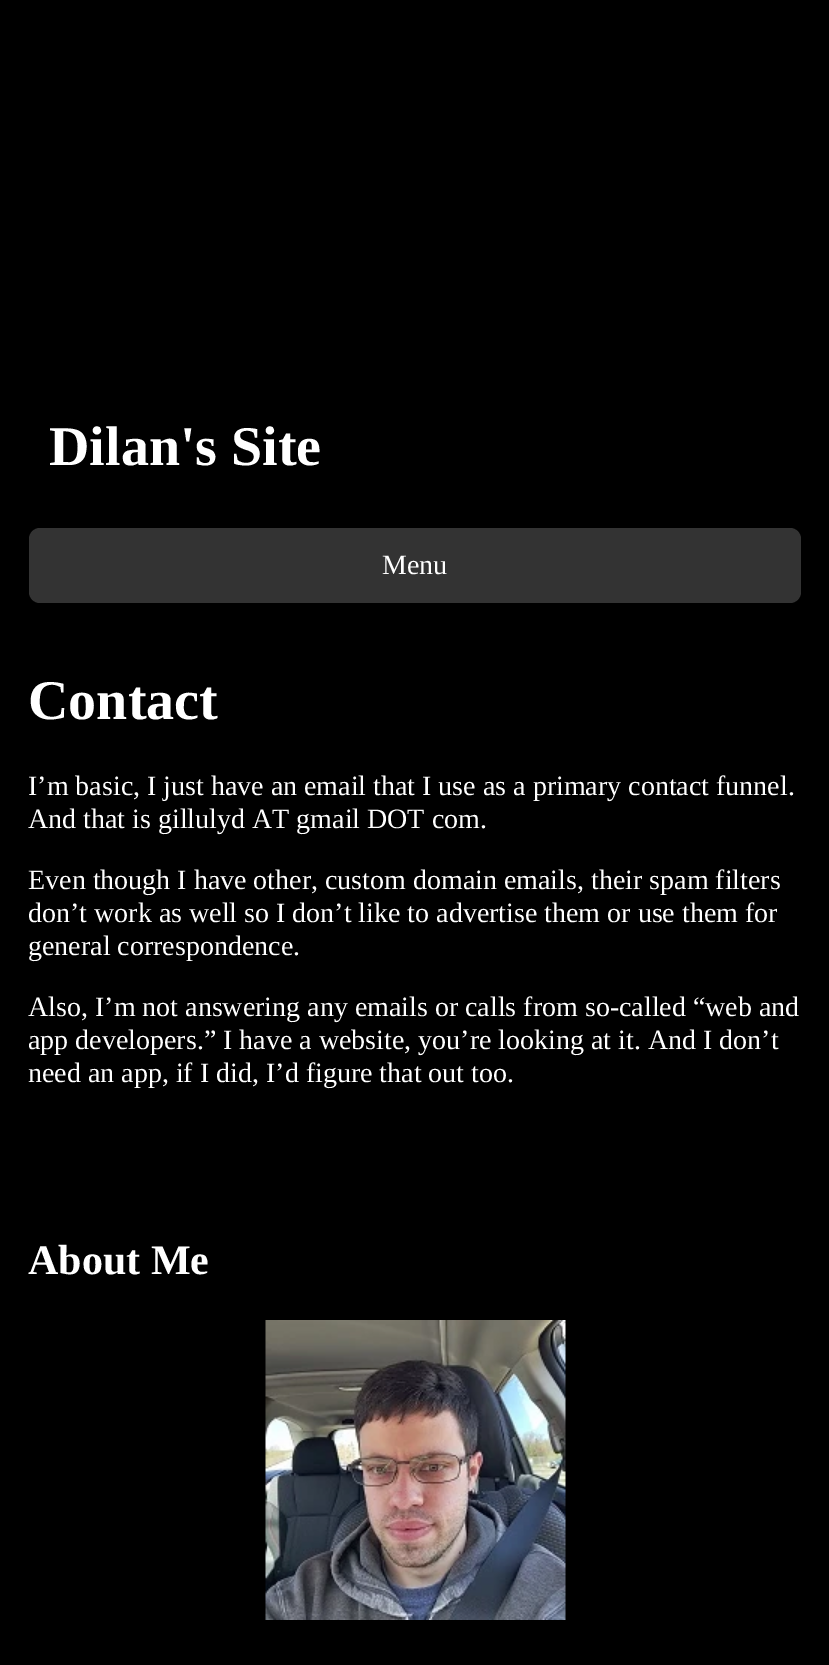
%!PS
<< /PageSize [829 1665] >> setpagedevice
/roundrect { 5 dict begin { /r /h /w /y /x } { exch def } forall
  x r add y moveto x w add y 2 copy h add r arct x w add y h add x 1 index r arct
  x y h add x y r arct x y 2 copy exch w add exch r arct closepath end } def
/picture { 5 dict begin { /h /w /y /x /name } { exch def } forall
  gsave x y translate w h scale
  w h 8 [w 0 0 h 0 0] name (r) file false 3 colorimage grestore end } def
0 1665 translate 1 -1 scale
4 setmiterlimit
0 setgray
0 0 829 1665 rectfill
/LiberationSerif-Bold [56 0 0 -56 0 0] selectfont
1 setgray
49 465 moveto (Dilan's Site) show
0.2 setgray
29 528 772 75 11 roundrect fill
/LiberationSerif-Regular [28 0 0 -28 0 0] selectfont
1 setgray
382 574 moveto (Menu) show
/LiberationSerif-Bold [56 0 0 -56 0 0] selectfont
28 719 moveto (Contact) show
/LiberationSerif-Regular [28 0 0 -28 0 0] selectfont
28 795 moveto (I’m basic, I just have an email that I use as a primary contact funnel.) show
28 828 moveto (And that is gillulyd AT gmail DOT com.) show
28 889 moveto (Even though I have other, custom domain emails, their spam filters) show
28 922 moveto (don’t work as well so I don’t like to advertise them or use them for) show
28 955 moveto (general correspondence.) show
28 1016 moveto (Also, I’m not answering any emails or calls from so-called “web and) show
28 1049 moveto (app developers.” I have a website, you’re looking at it. And I don’t) show
28 1082 moveto (need an app, if I did, I’d figure that out too.) show
/LiberationSerif-Bold [42 0 0 -42 0 0] selectfont
28 1274 moveto (About Me) show
(img1.rgb) 265 1320 301 300 picture
showpage
